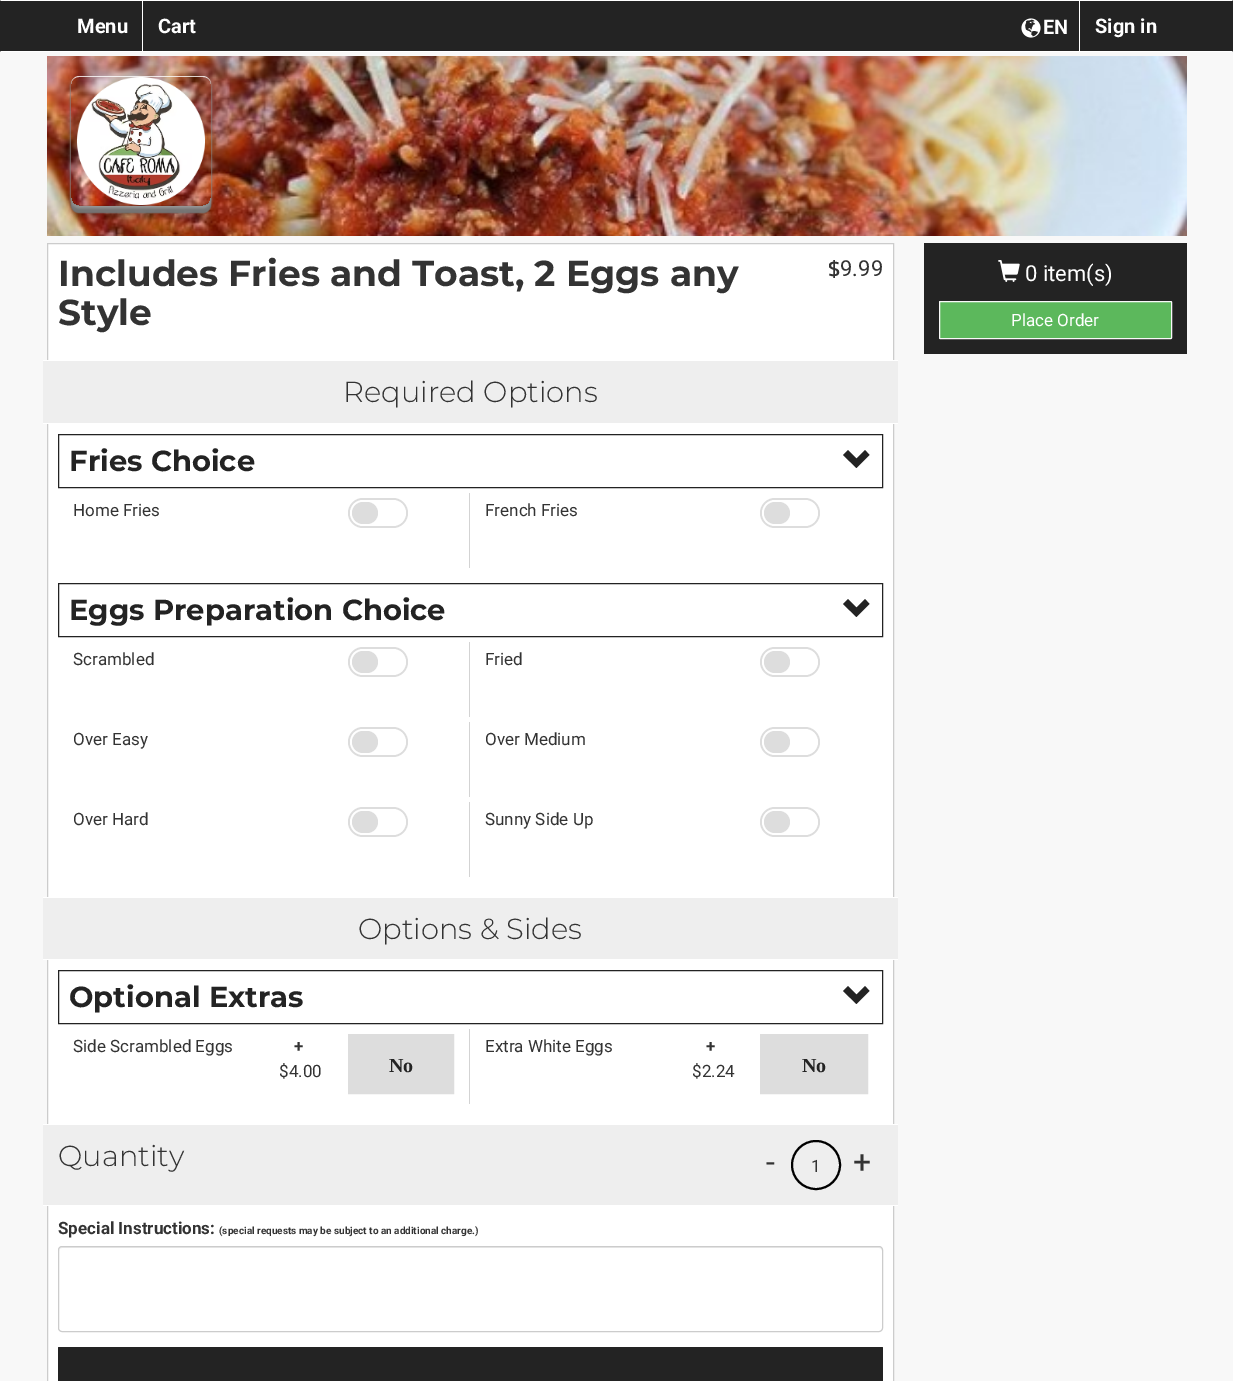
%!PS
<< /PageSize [1233 1381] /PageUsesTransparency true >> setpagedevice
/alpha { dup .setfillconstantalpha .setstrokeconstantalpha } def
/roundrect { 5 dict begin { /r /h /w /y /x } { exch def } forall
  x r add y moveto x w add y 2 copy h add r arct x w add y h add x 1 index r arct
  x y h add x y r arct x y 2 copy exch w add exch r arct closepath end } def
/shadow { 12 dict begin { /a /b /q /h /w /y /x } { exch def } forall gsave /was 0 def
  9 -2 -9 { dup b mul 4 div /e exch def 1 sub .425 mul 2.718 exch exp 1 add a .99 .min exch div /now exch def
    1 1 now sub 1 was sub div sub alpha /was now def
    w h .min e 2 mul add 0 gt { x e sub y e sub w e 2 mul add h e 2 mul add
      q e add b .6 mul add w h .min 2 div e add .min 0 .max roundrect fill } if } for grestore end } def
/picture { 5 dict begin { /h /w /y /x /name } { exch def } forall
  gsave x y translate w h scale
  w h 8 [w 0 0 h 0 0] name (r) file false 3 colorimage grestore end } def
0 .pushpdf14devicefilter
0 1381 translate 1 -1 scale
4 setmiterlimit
0.973 setgray
0 0 1233 1381 rectfill
0.137 setgray
0 0 1233 52 rectfill
1 setgray
newpath 0 0 moveto 1233 0 lineto 1232 1 lineto 1 1 lineto closepath fill
newpath 1233 52 moveto 0 52 lineto 1 51 lineto 1232 51 lineto closepath fill
142 1 1 50 rectfill
/Roboto-Bold [20 0 0 -20 0 0] selectfont
77 33 moveto (Menu) show
158 33 moveto (Cart) show
(img1.rgb) 1021 18 20 20 picture
1043 34 moveto (EN) show
1079 1 1 50 rectfill
1095 33 moveto (Sign in) show
(img2.rgb) 47 56 1140 180 picture
gsave
newpath 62 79 moveto 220 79 lineto 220 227 lineto 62 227 lineto closepath 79 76 moveto 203 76 lineto 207.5 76 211 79.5 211 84 curveto 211 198 lineto 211 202.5 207.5 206 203 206 curveto 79 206 lineto 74.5 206 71 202.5 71 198 curveto 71 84 lineto 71 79.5 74.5 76 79 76 curveto closepath eoclip newpath
0 setgray
71 88 140 130 8 2.5 0.2 shadow
grestore
gsave
newpath 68 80 moveto 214 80 lineto 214 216 lineto 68 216 lineto closepath 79 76 moveto 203 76 lineto 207.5 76 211 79.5 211 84 curveto 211 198 lineto 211 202.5 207.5 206 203 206 curveto 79 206 lineto 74.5 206 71 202.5 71 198 curveto 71 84 lineto 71 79.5 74.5 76 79 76 curveto closepath eoclip newpath
0.451 setgray
71 83 140 130 8 0.5 1 shadow
grestore
gsave
newpath 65 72 moveto 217 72 lineto 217 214 lineto 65 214 lineto closepath 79 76 moveto 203 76 lineto 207.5 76 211 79.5 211 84 curveto 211 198 lineto 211 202.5 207.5 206 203 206 curveto 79 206 lineto 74.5 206 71 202.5 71 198 curveto 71 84 lineto 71 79.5 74.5 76 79 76 curveto closepath eoclip newpath
0.6 setgray
71 78 140 130 8 1.5 1 shadow
grestore
(img3.rgb) 77 77 128 128 picture
0.8 alpha
newpath 79 76 moveto 75 76 71 80 71 84 curveto 71 80 75 77 79 77 curveto 203 77 lineto 207 77 211 80 211 84 curveto 211 80 207 76 203 76 curveto closepath fill
0.1 alpha
0 setgray
newpath 203 206 moveto 207 206 211 202 211 198 curveto 211 202 207 205 203 205 curveto 79 205 lineto 75 205 71 202 71 198 curveto 71 202 75 206 79 206 curveto closepath fill
1 alpha
1 setgray
newpath 47.5 243.5 moveto 893.5 243.5 lineto 893.5 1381.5 lineto 47.5 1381.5 lineto closepath gsave fill grestore
0.8 setgray
stroke
/Montserrat-Bold [36 0 0 -36 0 0] selectfont
0.2 setgray
58 286 moveto (Includes Fries and Toast, 2 Eggs any) show
58 325 moveto (Style) show
/Kanit-Regular [22 0 0 -22 0 0] selectfont
828 276 moveto ($) show
/Roboto-Regular [22 0 0 -22 0 0] selectfont
840 276 moveto (9.99) show
0.933 setgray
43 361 855 62 rectfill
1 setgray
43 360 855 1 rectfill
43 423 855 1 rectfill
/Montserrat-Light [29 0 0 -29 0 0] selectfont
0.2 setgray
343 402 moveto (Required Options) show
0.137 setgray
58.5 434.5 824 53 rectstroke
/Montserrat-Bold [29 0 0 -29 0 0] selectfont
69 471 moveto (Fries Choice) show
newpath 869.5 455 moveto 856.5 468 lineto 843 455 lineto 848 450 lineto 856.5 458.5 lineto 865 450 lineto closepath fill
/Roboto-Regular [17 0 0 -17 0 0] selectfont
0.2 setgray
73 516 moveto (Home Fries) show
0.827 setgray
469 493 1 75 rectfill
0.867 setgray
348 498 60 30 15 roundrect fill
1 setgray
350 500 56 26 13 roundrect fill
0.867 setgray
352 502 26 22 11 roundrect fill
0.2 setgray
485 516 moveto (French Fries) show
0.867 setgray
760 498 60 30 15 roundrect fill
1 setgray
762 500 56 26 13 roundrect fill
0.867 setgray
764 502 26 22 11 roundrect fill
0.137 setgray
58.5 583.5 824 53 rectstroke
/Montserrat-Bold [29 0 0 -29 0 0] selectfont
69 620 moveto (Eggs Preparation Choice) show
newpath 869.5 604 moveto 856.5 617 lineto 843 604 lineto 848 599 lineto 856.5 607.5 lineto 865 599 lineto closepath fill
/Roboto-Regular [17 0 0 -17 0 0] selectfont
0.2 setgray
73 665 moveto (Scrambled) show
0.827 setgray
469 642 1 75 rectfill
0.867 setgray
348 647 60 30 15 roundrect fill
1 setgray
350 649 56 26 13 roundrect fill
0.867 setgray
352 651 26 22 11 roundrect fill
0.2 setgray
485 665 moveto (Fried) show
0.867 setgray
760 647 60 30 15 roundrect fill
1 setgray
762 649 56 26 13 roundrect fill
0.867 setgray
764 651 26 22 11 roundrect fill
0.2 setgray
73 745 moveto (Over Easy) show
0.827 setgray
469 722 1 75 rectfill
0.867 setgray
348 727 60 30 15 roundrect fill
1 setgray
350 729 56 26 13 roundrect fill
0.867 setgray
352 731 26 22 11 roundrect fill
0.2 setgray
485 745 moveto (Over Medium) show
0.867 setgray
760 727 60 30 15 roundrect fill
1 setgray
762 729 56 26 13 roundrect fill
0.867 setgray
764 731 26 22 11 roundrect fill
0.2 setgray
73 825 moveto (Over Hard) show
0.827 setgray
469 802 1 75 rectfill
0.867 setgray
348 807 60 30 15 roundrect fill
1 setgray
350 809 56 26 13 roundrect fill
0.867 setgray
352 811 26 22 11 roundrect fill
0.2 setgray
485 825 moveto (Sunny Side Up) show
0.867 setgray
760 807 60 30 15 roundrect fill
1 setgray
762 809 56 26 13 roundrect fill
0.867 setgray
764 811 26 22 11 roundrect fill
0.933 setgray
43 898 855 61 rectfill
1 setgray
43 897 855 1 rectfill
43 959 855 1 rectfill
/Montserrat-Light [29 0 0 -29 0 0] selectfont
0.2 setgray
358 939 moveto (Options & Sides) show
0.137 setgray
58.5 970.5 824 53 rectstroke
/Montserrat-Bold [29 0 0 -29 0 0] selectfont
69 1007 moveto (Optional Extras) show
newpath 869.5 991 moveto 856.5 1004 lineto 843 991 lineto 848 986 lineto 856.5 994.5 lineto 865 986 lineto closepath fill
/Roboto-Regular [17 0 0 -17 0 0] selectfont
0.2 setgray
73 1052 moveto (Side Scrambled Eggs) show
/Roboto-Bold [17 0 0 -17 0 0] selectfont
294 1052 moveto (+) show
/Roboto-Regular [17 0 0 -17 0 0] selectfont
279 1077 moveto ($4.00) show
0.827 setgray
469 1029 1 75 rectfill
0.867 setgray
348.5 1034.5 105 59 rectstroke
349 1035 104 58 rectfill
/LiberationSerif-Bold [20 0 0 -20 0 0] selectfont
0.137 setgray
389 1072 moveto (No) show
/Roboto-Regular [17 0 0 -17 0 0] selectfont
0.2 setgray
485 1052 moveto (Extra White Eggs) show
/Roboto-Bold [17 0 0 -17 0 0] selectfont
706 1052 moveto (+) show
/Roboto-Regular [17 0 0 -17 0 0] selectfont
692 1077 moveto ($2.24) show
0.867 setgray
760.5 1034.5 107 59 rectstroke
761 1035 106 58 rectfill
/LiberationSerif-Bold [20 0 0 -20 0 0] selectfont
0.137 setgray
802 1072 moveto (No) show
0.933 setgray
43 1125 855 80 rectfill
1 setgray
43 1124 855 1 rectfill
43 1205 855 1 rectfill
/Montserrat-Light [29 0 0 -29 0 0] selectfont
0.2 setgray
58 1166 moveto (Quantity) show
/Roboto-Regular [32 0 0 -32 0 0] selectfont
766 1173 moveto (-) show
0 setgray
2 setlinewidth
newpath 816 1165 24 0 360 arc closepath stroke
/Roboto-Regular [17 0 0 -17 0 0] selectfont
0.2 setgray
811 1172 moveto (1) show
/Roboto-Regular [32 0 0 -32 0 0] selectfont
853 1173 moveto (+) show
/Roboto-Bold [17 0 0 -17 0 0] selectfont
58 1234 moveto (Special Instructions:) show
/Roboto-Bold [10 0 0 -10 0 0] selectfont
219 1234 moveto (\(special requests may be subject to an additional charge.\)) show
0.925 setgray
newpath 62 1248 moveto 879 1248 lineto 881 1248 882 1249 882 1251 curveto 882 1249 881 1247 879 1247 curveto 62 1247 lineto 60 1247 59 1249 59 1251 curveto 59 1249 60 1248 62 1248 curveto closepath fill
0.8 setgray
1 setlinewidth
58.5 1246.5 824 85 3.5 roundrect stroke
0.137 setgray
58 1347 825 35 1 roundrect fill
924 243 263 111 rectfill
(img4.rgb) 998 260 22 22 picture
/Roboto-Regular [22 0 0 -22 0 0] selectfont
1 setgray
1025 281 moveto (0 item\(s\)) show
0.361 0.722 0.361 setrgbcolor
939.5 301.5 232 37 0.5 roundrect gsave fill grestore
0.973 setgray
stroke
/Roboto-Regular [17 0 0 -17 0 0] selectfont
1 setgray
1011 326 moveto (Place Order) show
.poppdf14devicefilter showpage
